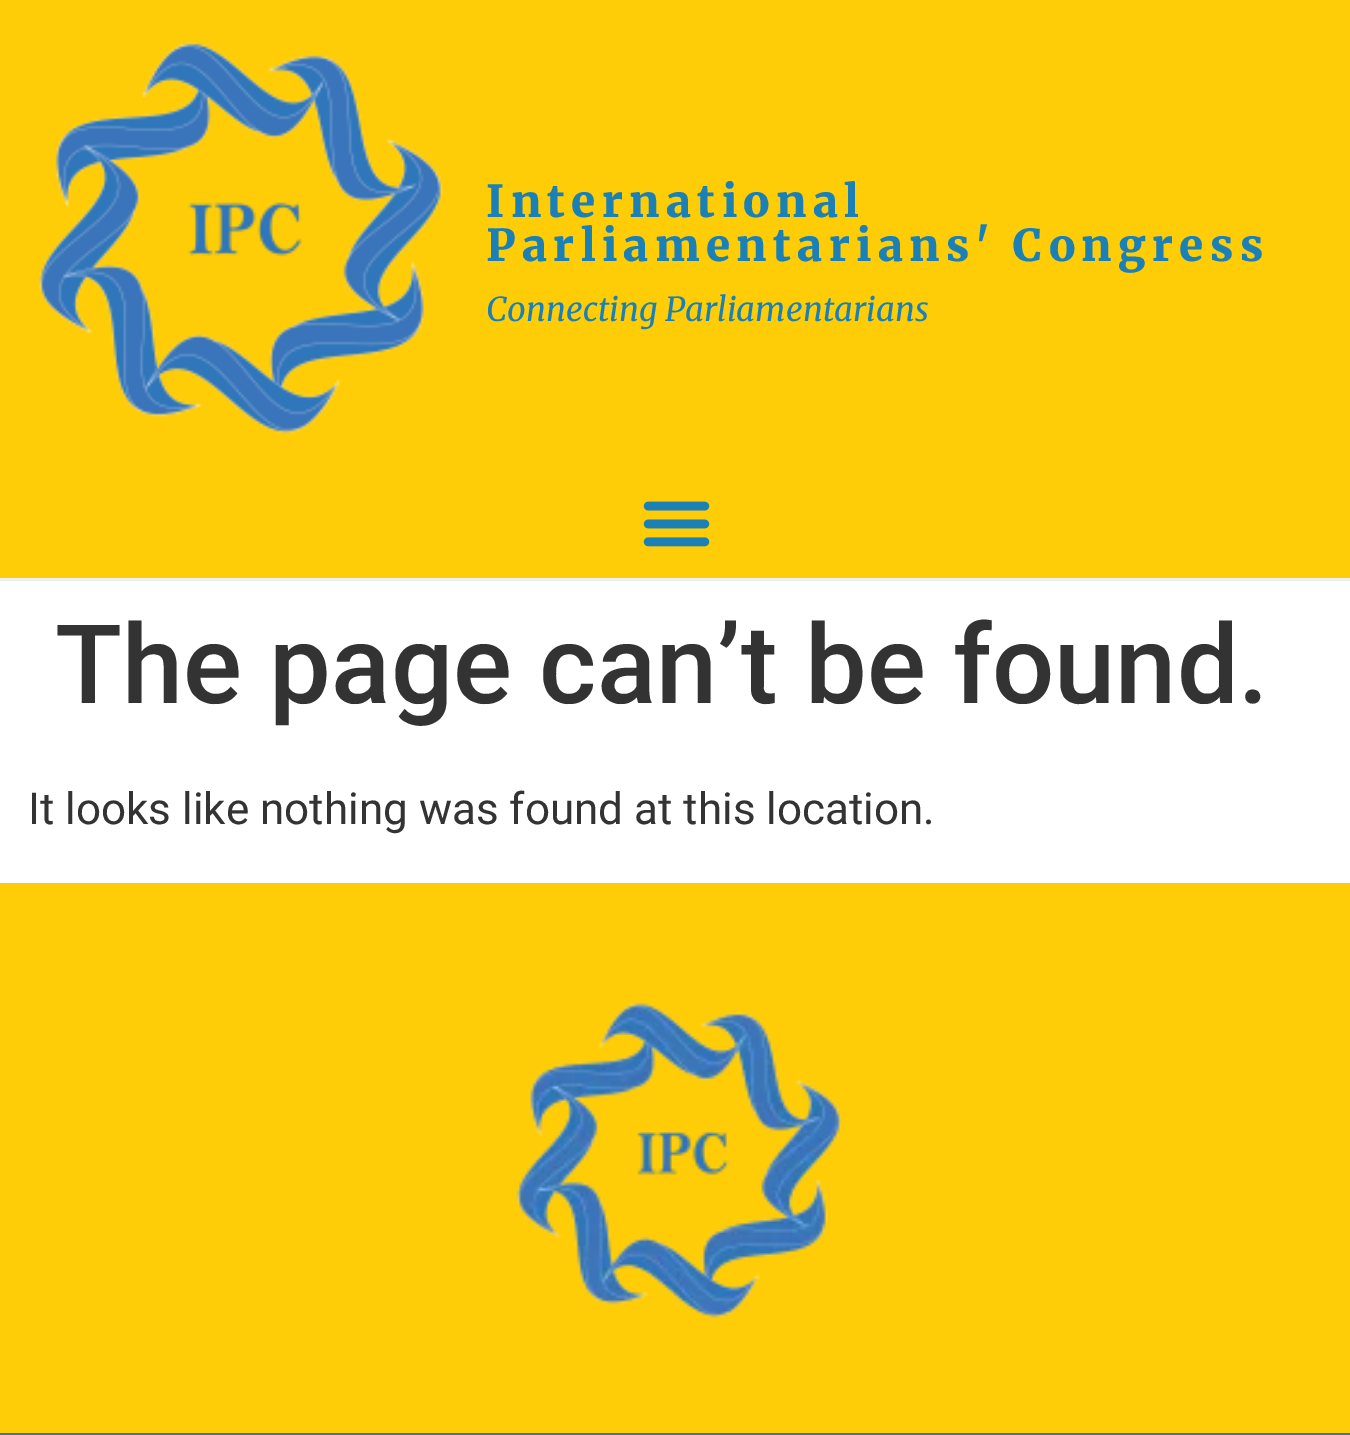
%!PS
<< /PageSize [1350 1435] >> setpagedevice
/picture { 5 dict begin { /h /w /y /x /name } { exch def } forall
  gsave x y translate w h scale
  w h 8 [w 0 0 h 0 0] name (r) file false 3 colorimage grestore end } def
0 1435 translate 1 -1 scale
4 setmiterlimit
1 setgray
0 0 1350 1435 rectfill
1 0.804 0.027 setrgbcolor
0 0 1350 578 rectfill
0.937 setgray
0 578 1350 3 rectfill
(img1.rgb) 38 41 406 393 picture
/Merriweather-Black [44 0 0 -44 0 0] selectfont
0.102 0.502 0.714 setrgbcolor
486 217 moveto 6.3 0 (International) ashow
486 261 moveto 6.3 0 (Parliamentarians' Congress) ashow
/Merriweather-Italic [33 0 0 -33 0 0] selectfont
486 321 moveto (Connecting Parliamentarians) show
(img2.rgb) 643 501 67 46 picture
/Roboto-Medium [110 0 0 -110 0 0] selectfont
0.2 setgray
55 703 moveto (The page can’t be found.) show
/Roboto-Regular [44 0 0 -44 0 0] selectfont
28 824 moveto (It looks like nothing was found at this location.) show
1 0.804 0.027 setrgbcolor
0 883 1350 550 rectfill
(img3.rgb) 516 1003 326 316 picture
0.227 0.443 0.718 setrgbcolor
0 1433 1350 2 rectfill
showpage
